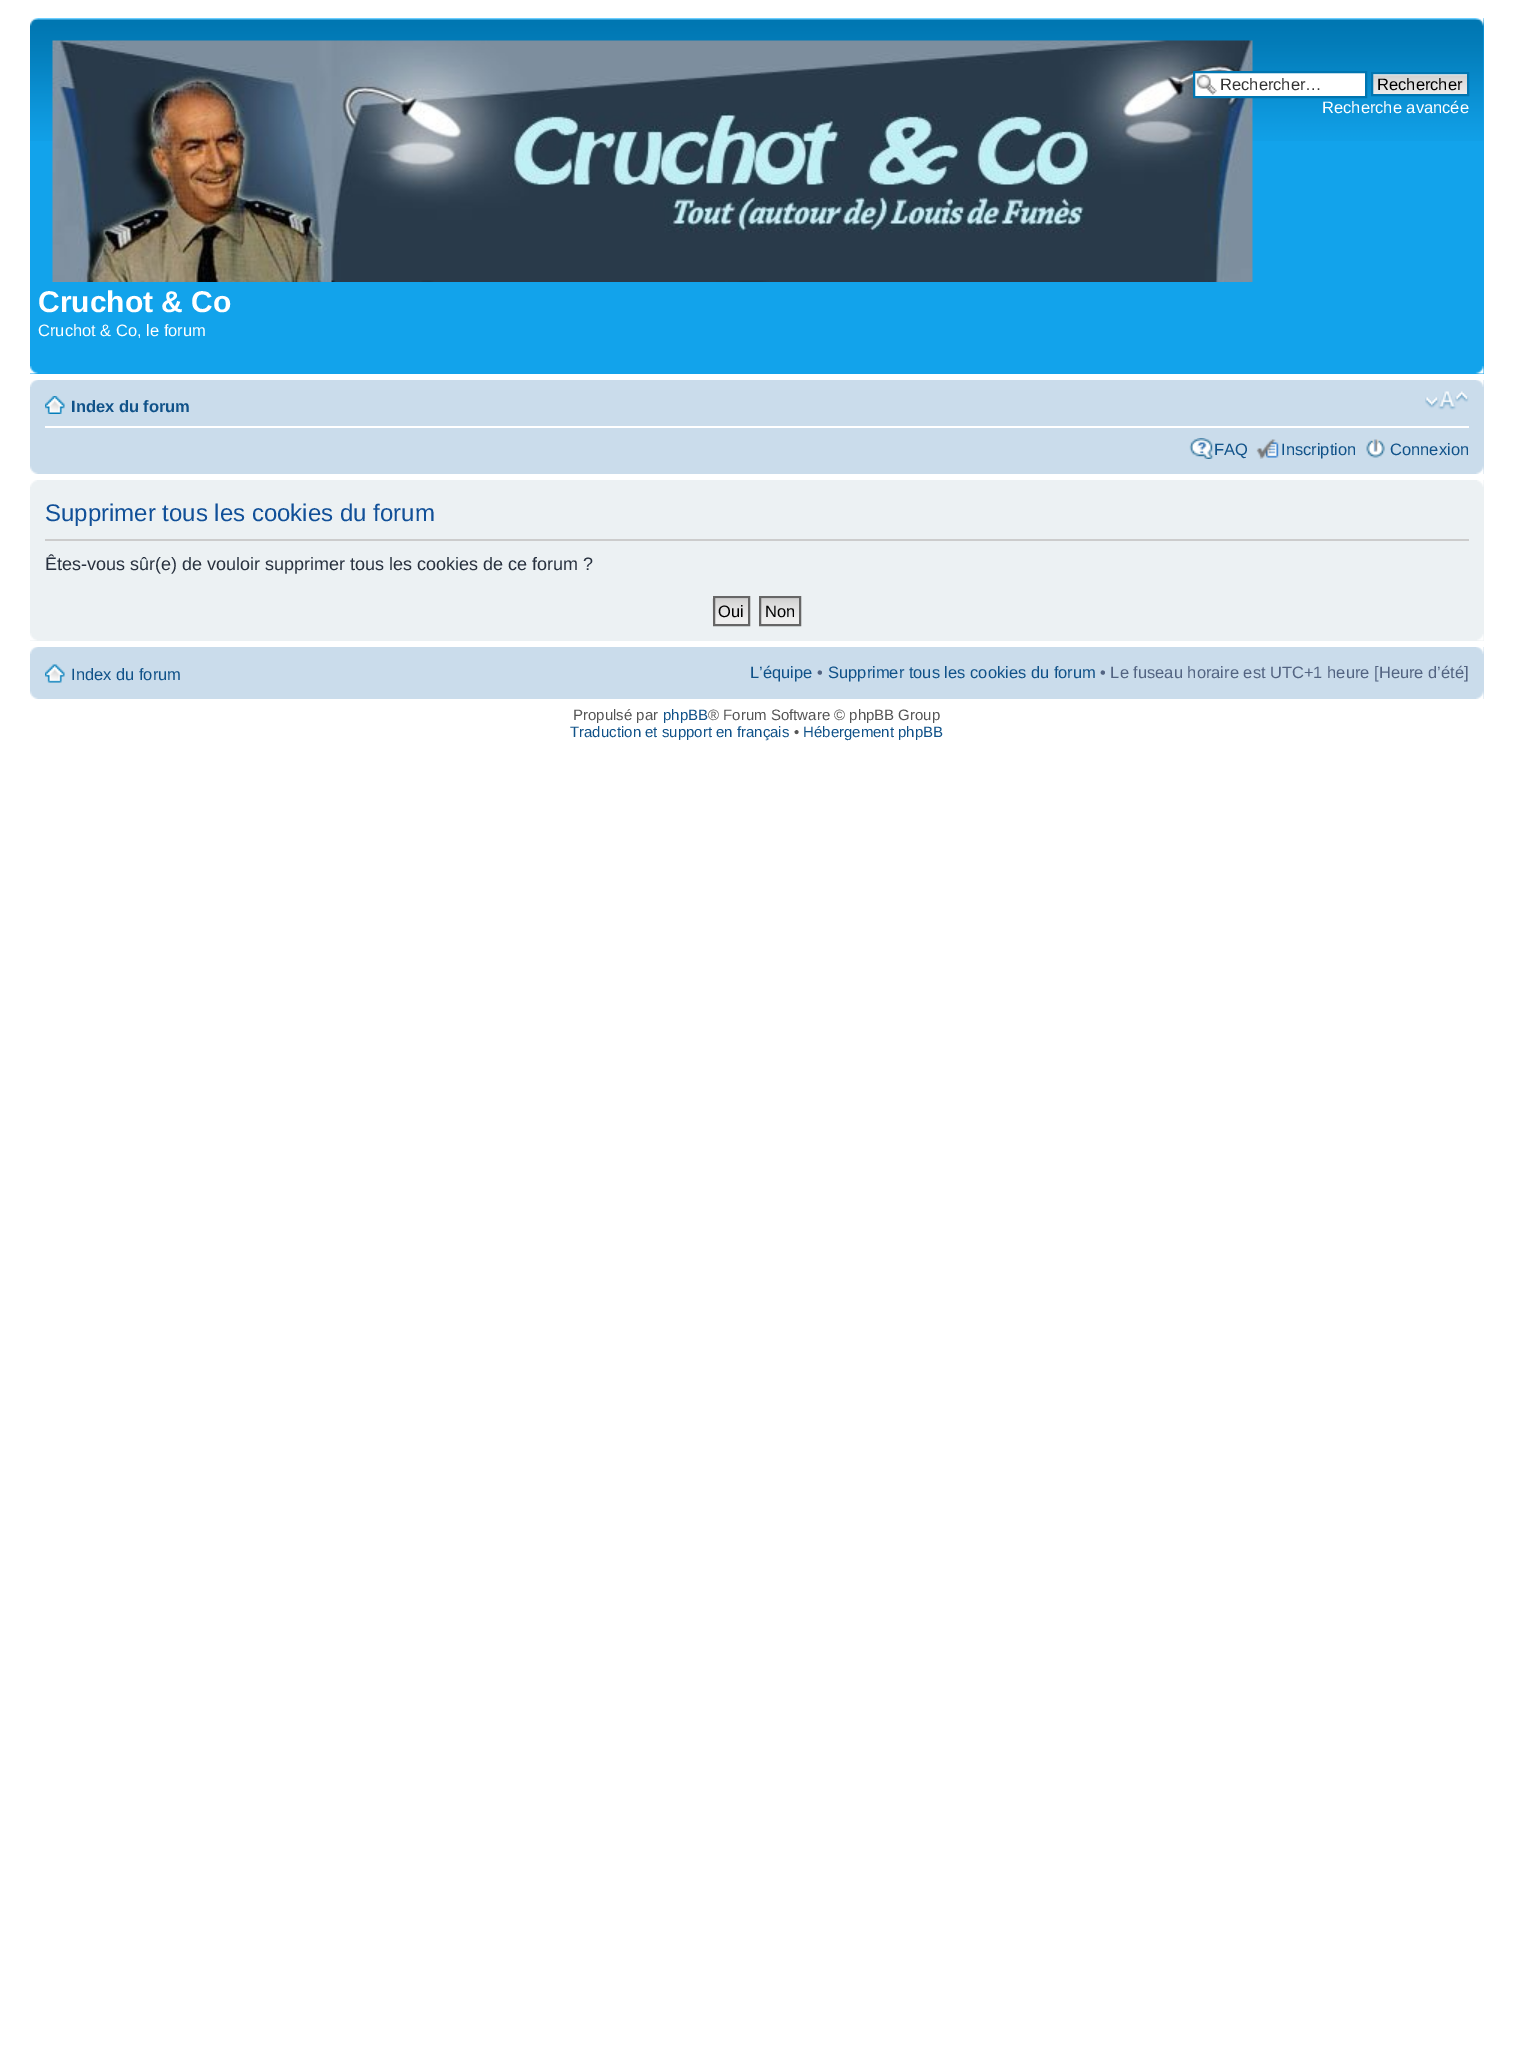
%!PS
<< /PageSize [1513 2071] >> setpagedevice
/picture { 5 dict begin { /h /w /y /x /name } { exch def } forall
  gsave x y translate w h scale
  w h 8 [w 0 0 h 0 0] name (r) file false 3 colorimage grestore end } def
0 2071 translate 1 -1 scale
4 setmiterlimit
1 setgray
0 0 1513 2071 rectfill
0.071 0.639 0.922 setrgbcolor
30 18 1454 356 rectfill
(img1.rgb) 30 18 1454 123 picture
(img2.rgb) 30 18 8 8 picture
(img3.rgb) 1475 18 9 8 picture
(img6.rgb) 52 40 1201 242 picture
1 setgray
1195 73 170 23 rectfill
(img4.rgb) 1196 74 21 21 picture
0 0.459 0.69 setrgbcolor
2 setlinewidth
1194 72 172 25 rectstroke
/LiberationSans-Regular [16.5 0 0 -16.5 0 0] selectfont
0.2 setgray
1220 90 moveto (Rechercher…) show
0.98 setgray
1373 74 94 1 rectfill
(img5.rgb) 1373 75 94 19 picture
0 0.459 0.69 setrgbcolor
1372 73 96 22 rectstroke
0 setgray
1377 90 moveto (Rechercher) show
1 setgray
1322 113 moveto (Recherche avancée) show
/LiberationSans-Bold [30 0 0 -30 0 0] selectfont
38 312 moveto (Cruchot & Co) show
/LiberationSans-Regular [16.5 0 0 -16.5 0 0] selectfont
38 336 moveto (Cruchot & Co, le forum) show
(img7.rgb) 30 366 8 8 picture
(img8.rgb) 1475 366 9 8 picture
0.792 0.863 0.922 setrgbcolor
30 380 1454 94 rectfill
(img9.rgb) 30 380 8 7 picture
(img10.rgb) 1476 380 8 7 picture
1 setgray
45 426 1424 2 rectfill
(img11.rgb) 45 396 20 18 picture
/LiberationSans-Bold [16.5 0 0 -16.5 0 0] selectfont
0.063 0.322 0.537 setrgbcolor
71 412 moveto (Index du forum) show
(img12.rgb) 1425 391 44 19 picture
(img13.rgb) 1189 438 25 21 picture
/LiberationSans-Regular [16.5 0 0 -16.5 0 0] selectfont
1214 455 moveto (FAQ) show
(img14.rgb) 1256 439 23 20 picture
1281 455 moveto (Inscription) show
(img15.rgb) 1366 439 19 19 picture
1390 455 moveto (Connexion) show
(img16.rgb) 30 466 8 8 picture
(img17.rgb) 1476 466 8 8 picture
0.925 0.945 0.953 setrgbcolor
30 480 1454 161 rectfill
(img18.rgb) 30 480 7 7 picture
(img19.rgb) 1477 480 7 7 picture
0.8 setgray
45 539 1424 2 rectfill
/LiberationSans-Regular [24 0 0 -24 0 0] selectfont
0.067 0.314 0.596 setrgbcolor
45 521 moveto (Supprimer tous les cookies du forum) show
/LiberationSans-Regular [18 0 0 -18 0 0] selectfont
0.157 0.192 0.247 setrgbcolor
45 570 moveto (Êtes-vous sûr\(e\) de vouloir supprimer tous les cookies de ce forum ?) show
(img20.rgb) 712 597 36 29 picture
0.4 setgray
714 597 35 28 rectstroke
/LiberationSans-Regular [16.5 0 0 -16.5 0 0] selectfont
0 setgray
718 617 moveto (Oui) show
(img21.rgb) 761 598 38 26 picture
0.4 setgray
760 597 40 28 rectstroke
0 setgray
765 617 moveto (Non) show
(img22.rgb) 30 633 7 8 picture
(img23.rgb) 1477 634 7 7 picture
0.792 0.863 0.922 setrgbcolor
30 647 1454 52 rectfill
(img9.rgb) 30 647 8 7 picture
(img10.rgb) 1476 647 8 7 picture
(img24.rgb) 45 664 20 19 picture
0.063 0.322 0.537 setrgbcolor
71 680 moveto (Index du forum) show
750 678 moveto (L’équipe) show
0.325 0.392 0.51 setrgbcolor
817 678 moveto (•) show
0.063 0.322 0.537 setrgbcolor
828 678 moveto (Supprimer tous les cookies du forum) show
0.325 0.392 0.51 setrgbcolor
1100 678 moveto (• Le fuseau horaire est UTC+1 heure [Heure d’été]) show
(img16.rgb) 30 691 8 8 picture
(img17.rgb) 1476 691 8 8 picture
/LiberationSans-Regular [15 0 0 -15 0 0] selectfont
0.333 setgray
573 720 moveto (Propulsé par) show
0.063 0.322 0.537 setrgbcolor
663 720 moveto (phpBB) show
0.333 setgray
708 720 moveto (® Forum Software © phpBB Group) show
0.063 0.322 0.537 setrgbcolor
570 737 moveto (Traduction et support en français) show
0.333 setgray
794 737 moveto (•) show
0.063 0.322 0.537 setrgbcolor
803 737 moveto (Hébergement phpBB) show
showpage
